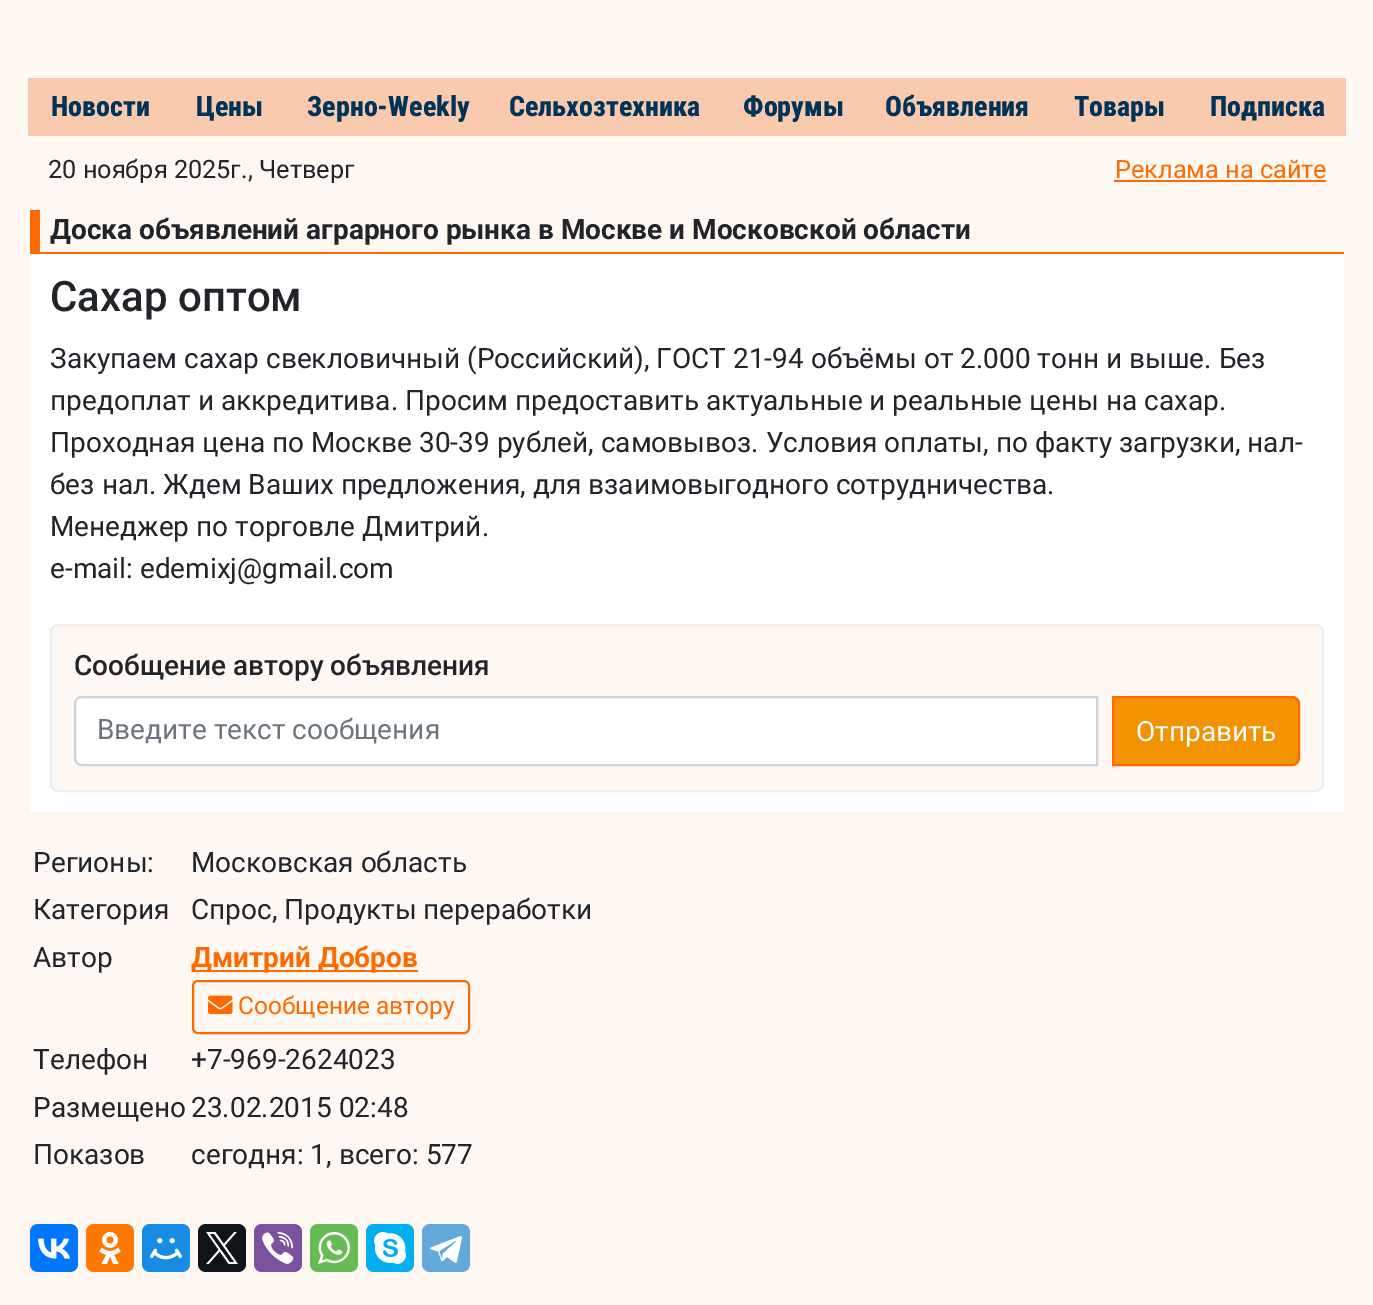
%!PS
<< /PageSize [1373 1305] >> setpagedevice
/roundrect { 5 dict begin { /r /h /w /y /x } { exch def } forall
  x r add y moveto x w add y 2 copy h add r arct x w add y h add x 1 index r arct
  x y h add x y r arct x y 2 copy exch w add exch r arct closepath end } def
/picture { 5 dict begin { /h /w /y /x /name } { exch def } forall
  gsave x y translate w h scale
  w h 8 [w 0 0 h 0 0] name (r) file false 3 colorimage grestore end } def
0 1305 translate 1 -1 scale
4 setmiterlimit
1 0.969 0.949 setrgbcolor
0 0 1373 1305 rectfill
0.976 0.792 0.678 setrgbcolor
28 78 1318 58 rectfill
/RobotoCondensed-ExtraBold [28 0 0 -28 0 0] selectfont
0 0.2 0.341 setrgbcolor
51 116 moveto (Новости) show
196 116 moveto (Цены) show
307 116 moveto (Зерно-Weekly) show
509 116 moveto (Сельхозтехника) show
743 116 moveto (Форумы) show
885 116 moveto (Объявления) show
1074 116 moveto (Товары) show
1210 116 moveto (Подписка) show
/Roboto-Regular [25.25 0 0 -25.25 0 0] selectfont
0.129 0.145 0.161 setrgbcolor
48 178 moveto (20 ноября 2025г., Четверг) show
1 0.416 0 setrgbcolor
1115 178 moveto (Реклама на сайте) show
1114 180 212 2 rectfill
40 252 1304 2 rectfill
30 210 10 44 rectfill
/Roboto-Bold [28 0 0 -28 0 0] selectfont
0.129 0.145 0.161 setrgbcolor
50 239 moveto (Доска объявлений аграрного рынка в Москве и Московской области) show
1 setgray
30 254 1314 558 rectfill
/Roboto-Medium [42 0 0 -42 0 0] selectfont
0.129 0.145 0.161 setrgbcolor
50 311 moveto (Сахар оптом) show
/Roboto-Regular [28 0 0 -28 0 0] selectfont
50 368 moveto (Закупаем сахар свекловичный \(Российский\), ГОСТ 21-94 объёмы от 2.000 тонн и выше. Без) show
50 410 moveto (предоплат и аккредитива. Просим предоставить актуальные и реальные цены на сахар.) show
50 452 moveto (Проходная цена по Москве 30-39 рублей, самовывоз. Условия оплаты, по факту загрузки, нал-) show
50 494 moveto (без нал. Ждем Ваших предложения, для взаимовыгодного сотрудничества.) show
50 536 moveto (Менеджер по торговле Дмитрий.) show
50 578 moveto (e-mail: edemixj@gmail.com) show
1 0.969 0.949 setrgbcolor
51 625 1272 166 7 roundrect gsave fill grestore
0.933 setgray
2 setlinewidth
stroke
/Roboto-Medium [28 0 0 -28 0 0] selectfont
0.129 0.145 0.161 setrgbcolor
74 675 moveto (Сообщение автору объявления) show
1 setgray
newpath 81 698 moveto 1096 698 lineto 1096 764 lineto 81 764 lineto 78 764 76 762 76 759 curveto 76 703 lineto 76 700 78 698 81 698 curveto closepath fill
0.808 0.831 0.855 setrgbcolor
newpath 82 697 moveto 1097 697 lineto 1097 765 lineto 82 765 lineto 78 765 75 762 75 758 curveto 75 704 lineto 75 700 78 697 82 697 curveto closepath stroke
/Roboto-Regular [28 0 0 -28 0 0] selectfont
0.424 0.459 0.49 setrgbcolor
97 739 moveto (Введите текст сообщения) show
0.957 0.576 0.004 setrgbcolor
newpath 1113 697 moveto 1292 697 lineto 1296 697 1299 700 1299 704 curveto 1299 758 lineto 1299 762 1296 765 1292 765 curveto 1113 765 lineto closepath gsave fill grestore
1 0.416 0 setrgbcolor
stroke
1 setgray
1136 741 moveto (Отправить) show
0.129 0.145 0.161 setrgbcolor
33 872 moveto (Регионы:) show
191 872 moveto (Московская область) show
33 919 moveto (Категория) show
191 919 moveto (Спрос, Продукты переработки) show
33 967 moveto (Автор) show
1 0.416 0 setrgbcolor
192 970 226 2 rectfill
/Roboto-Bold [28 0 0 -28 0 0] selectfont
191 967 moveto (Дмитрий Добров) show
193 981 276 52 5 roundrect stroke
(img1.rgb) 208 995 25 19 picture
/Roboto-Regular [24.5 0 0 -24.5 0 0] selectfont
238 1014 moveto (Сообщение автору) show
/Roboto-Regular [28 0 0 -28 0 0] selectfont
0.129 0.145 0.161 setrgbcolor
33 1069 moveto (Телефон) show
191 1069 moveto (+7-969-2624023) show
33 1117 moveto (Размещено) show
191 1117 moveto (23.02.2015 02:48) show
33 1164 moveto (Показов) show
191 1164 moveto (cегодня: 1, всего: 577) show
0 0.467 1 setrgbcolor
30 1224 48 48 8 roundrect fill
(img2.rgb) 38 1238 33 21 picture
1 0.467 0 setrgbcolor
86 1224 48 48 8 roundrect fill
(img3.rgb) 99 1232 22 32 picture
0.086 0.553 0.886 setrgbcolor
142 1224 48 48 8 roundrect fill
(img4.rgb) 150 1238 32 22 picture
0.059 0.078 0.098 setrgbcolor
198 1224 48 48 8 roundrect fill
(img5.rgb) 206 1232 32 32 picture
0.482 0.318 0.616 setrgbcolor
254 1224 48 48 8 roundrect fill
(img6.rgb) 262 1232 32 32 picture
0.396 0.737 0.329 setrgbcolor
310 1224 48 48 8 roundrect fill
(img7.rgb) 318 1232 32 32 picture
0 0.686 0.941 setrgbcolor
366 1224 48 48 8 roundrect fill
(img8.rgb) 374 1232 32 32 picture
0.392 0.663 0.863 setrgbcolor
422 1224 48 48 8 roundrect fill
(img9.rgb) 430 1236 32 27 picture
showpage
